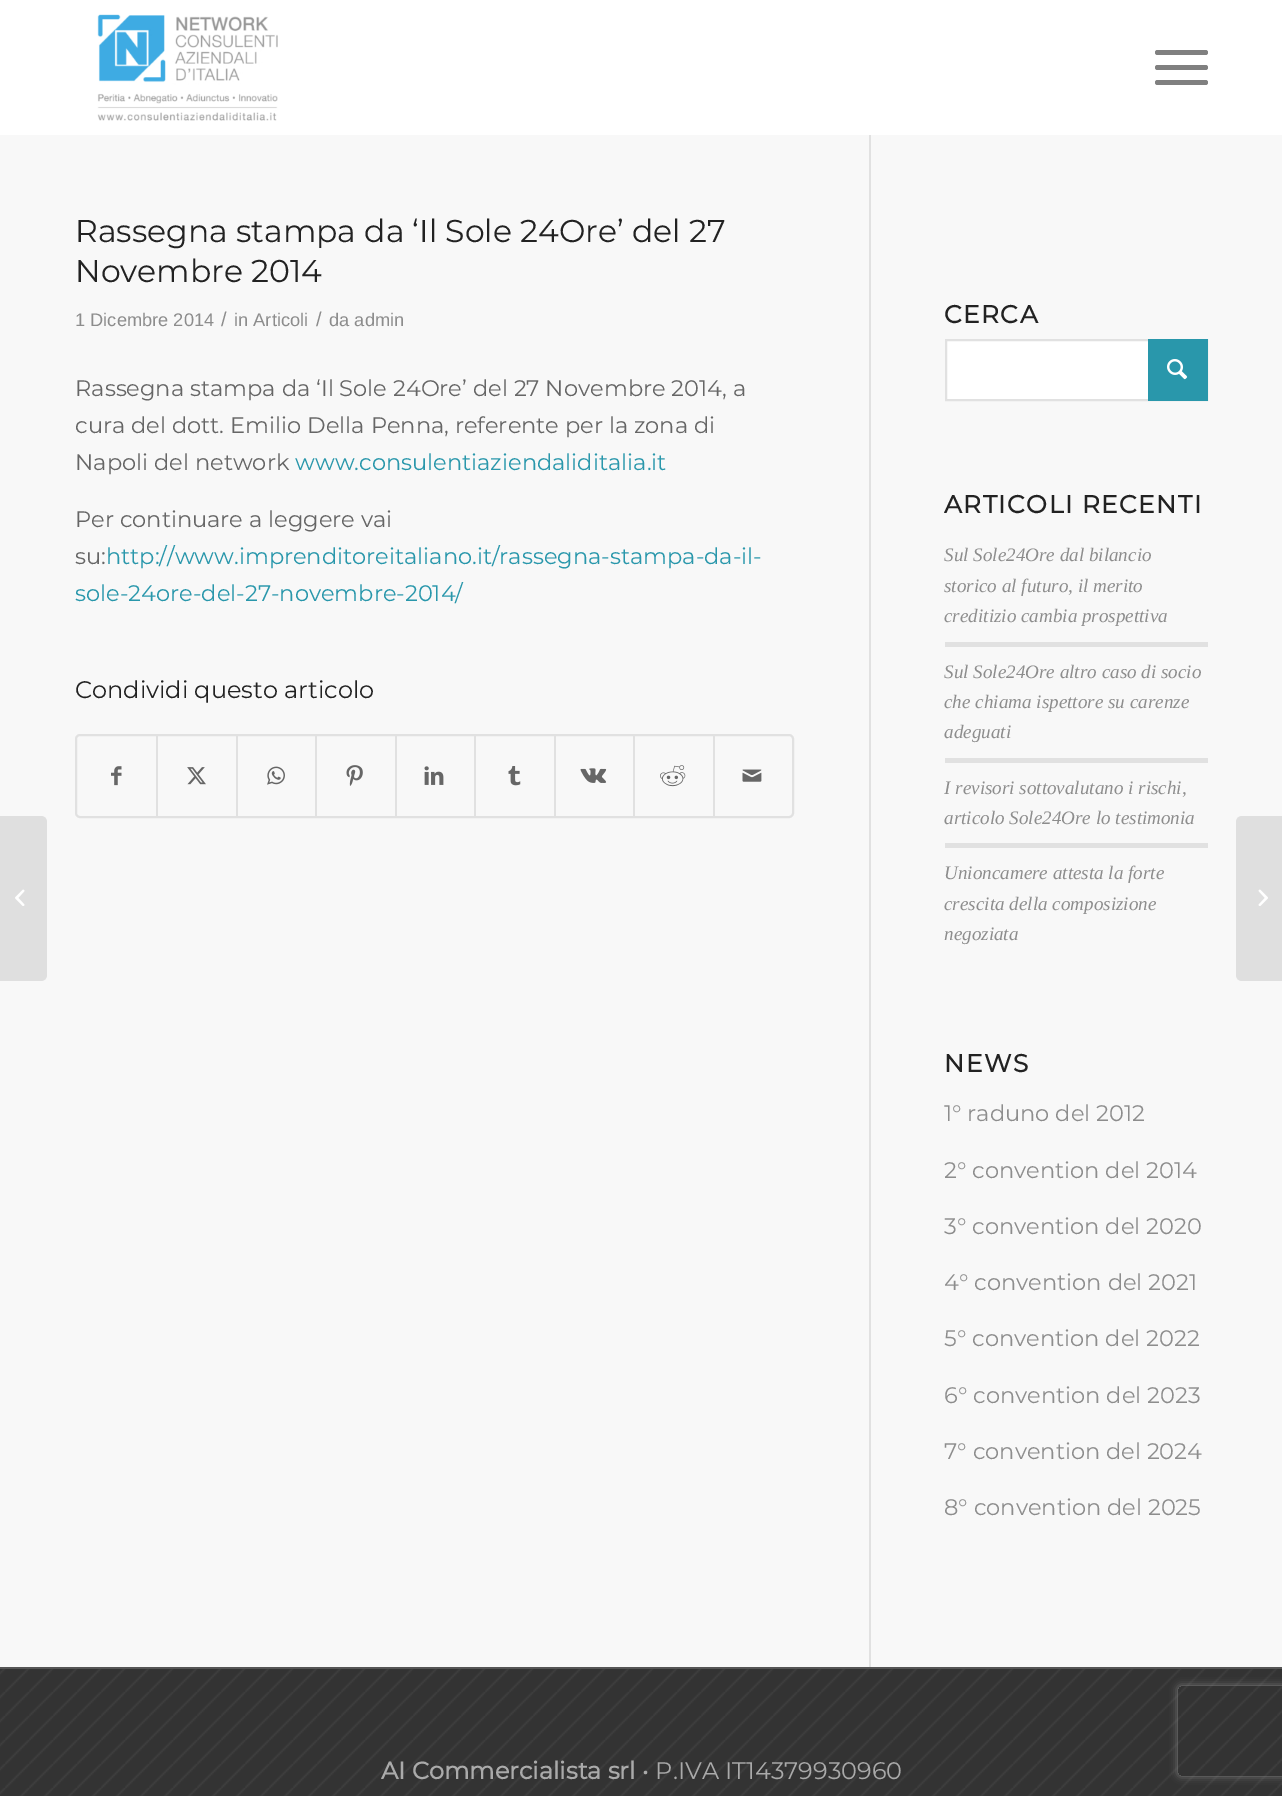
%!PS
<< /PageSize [1282 1796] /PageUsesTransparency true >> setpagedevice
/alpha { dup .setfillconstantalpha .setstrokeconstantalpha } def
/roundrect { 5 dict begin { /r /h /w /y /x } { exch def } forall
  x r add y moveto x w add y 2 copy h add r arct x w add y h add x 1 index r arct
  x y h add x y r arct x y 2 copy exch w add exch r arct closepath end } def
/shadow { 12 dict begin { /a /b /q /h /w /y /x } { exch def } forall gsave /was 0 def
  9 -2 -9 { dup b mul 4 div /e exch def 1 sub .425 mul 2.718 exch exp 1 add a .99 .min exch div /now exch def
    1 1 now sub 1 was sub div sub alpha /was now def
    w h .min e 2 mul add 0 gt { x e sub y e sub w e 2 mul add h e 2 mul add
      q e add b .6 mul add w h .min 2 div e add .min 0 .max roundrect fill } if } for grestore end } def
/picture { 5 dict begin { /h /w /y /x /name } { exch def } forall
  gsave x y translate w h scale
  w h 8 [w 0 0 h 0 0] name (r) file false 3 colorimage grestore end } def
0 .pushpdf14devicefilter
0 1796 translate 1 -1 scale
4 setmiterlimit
0.973 setgray
0 0 1282 1796 rectfill
1 setgray
0 0 1282 135 rectfill
(img1.rgb) 97 14 181 107 picture
0.502 setgray
1155 65 53 5 2.5 roundrect fill
1155 50 53 5 2.5 roundrect fill
1155 80 53 5 2.5 roundrect fill
0.875 setgray
newpath 0 816 moveto 41 816 lineto 44.5 816 47 818.5 47 822 curveto 47 975 lineto 47 978.5 44.5 981 41 981 curveto 0 981 lineto closepath fill
(img2.rgb) 15 889 10 17 picture
/Montserrat-Thin [31.5 0 0 -31.5 0 0] selectfont
0.133 setgray
75 242 moveto (Rassegna stampa da ‘Il Sole 24Ore’ del 27) show
75 282 moveto (Novembre 2014) show
/LiberationSans-Regular [18.25 0 0 -18.25 0 0] selectfont
0.553 setgray
75 326 moveto (1 Dicembre 2014) show
/LiberationSans-Regular [20 0 0 -20 0 0] selectfont
221 326 moveto (/) show
/LiberationSans-Regular [18.25 0 0 -18.25 0 0] selectfont
234 326 moveto (in Articoli) show
/LiberationSans-Regular [20 0 0 -20 0 0] selectfont
316 326 moveto (/) show
/LiberationSans-Regular [18.25 0 0 -18.25 0 0] selectfont
329 326 moveto (da admin) show
/Montserrat-Thin [22.5 0 0 -22.5 0 0] selectfont
0.4 setgray
75 396 moveto (Rassegna stampa da ‘Il Sole 24Ore’ del 27 Novembre 2014, a) show
75 433 moveto (cura del dott. Emilio Della Penna, referente per la zona di) show
75 470 moveto (Napoli del network) show
0.161 0.592 0.671 setrgbcolor
295 470 moveto (www.consulentiaziendaliditalia.it) show
0.4 setgray
75 527 moveto (Per continuare a leggere vai) show
75 564 moveto (su:) show
0.161 0.592 0.671 setrgbcolor
106 564 moveto (http://www.imprenditoreitaliano.it/rassegna-stampa-da-il-) show
75 601 moveto (sole-24ore-del-27-novembre-2014/) show
/Montserrat-Thin [24 0 0 -24 0 0] selectfont
0.133 setgray
75 698 moveto (Condividi questo articolo) show
0.882 setgray
2 setlinewidth
76 735 717 82 4 roundrect stroke
(img3.rgb) 111 766 11 20 picture
156 735 2 81 rectfill
(img4.rgb) 187 767 19 18 picture
236 735 2 81 rectfill
(img5.rgb) 267 766 18 19 picture
315 735 2 81 rectfill
(img6.rgb) 346 765 17 21 picture
395 735 2 81 rectfill
(img7.rgb) 424 766 20 19 picture
474 735 2 81 rectfill
(img8.rgb) 508 766 13 20 picture
554 735 2 81 rectfill
(img9.rgb) 580 768 27 15 picture
633 735 2 81 rectfill
(img10.rgb) 660 765 26 22 picture
713 735 2 81 rectfill
(img11.rgb) 742 769 20 13 picture
869 135 2 1532 rectfill
/Montserrat-Bold [24.75 0 0 -24.75 0 0] selectfont
0.133 setgray
944 323 moveto 1.5 0 (CERCA) ashow
1 setgray
947 341 201 58 rectfill
0.882 setgray
946 340 261 60 rectstroke
0.161 0.592 0.671 setrgbcolor
1148 339 60 62 rectfill
(img12.rgb) 1167 359 21 21 picture
0.133 setgray
944 513 moveto 1.5 0 (ARTICOLI RECENTI) ashow
/LiberationSerif-Italic [19.1 0 0 -19.1 0 0] selectfont
0.553 setgray
944 561 moveto (Sul Sole24Ore dal bilancio) show
944 592 moveto (storico al futuro, il merito) show
944 622 moveto (creditizio cambia prospettiva) show
0.882 setgray
945 642 263 5 rectfill
0.553 setgray
944 678 moveto (Sul Sole24Ore altro caso di socio) show
944 708 moveto (che chiama ispettore su carenze) show
944 738 moveto (adeguati) show
0.882 setgray
945 758 263 5 rectfill
0.553 setgray
944 794 moveto (I revisori sottovalutano i rischi,) show
944 824 moveto (articolo Sole24Ore lo testimonia) show
0.882 setgray
945 843 263 5 rectfill
0.553 setgray
944 879 moveto (Unioncamere attesta la forte) show
944 910 moveto (crescita della composizione) show
944 940 moveto (negoziata) show
/Montserrat-Bold [24.75 0 0 -24.75 0 0] selectfont
0.133 setgray
944 1072 moveto 1.5 0 (NEWS) ashow
/Montserrat-Thin [22.5 0 0 -22.5 0 0] selectfont
0.553 setgray
944 1121 moveto (1° raduno del 2012) show
944 1178 moveto (2° convention del 2014) show
944 1234 moveto (3° convention del 2020) show
944 1290 moveto (4° convention del 2021) show
944 1346 moveto (5° convention del 2022) show
944 1403 moveto (6° convention del 2023) show
944 1459 moveto (7° convention del 2024) show
944 1515 moveto (8° convention del 2025) show
0.2 setgray
0 1669 1282 127 rectfill
(img13.rgb) 0 1669 1282 127 picture
0.333 setgray
0 1667 1282 2 rectfill
/Montserrat-Bold [24 0 0 -24 0 0] selectfont
0.667 setgray
381 1779 moveto (AI Commercialista srl) show
/Montserrat-Thin [24 0 0 -24 0 0] selectfont
642 1779 moveto (• P.IVA IT14379930960) show
0.875 setgray
newpath 1242 816 moveto 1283 816 lineto 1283 981 lineto 1242 981 lineto 1238.5 981 1236 978.5 1236 975 curveto 1236 822 lineto 1236 818.5 1238.5 816 1242 816 curveto closepath fill
(img14.rgb) 1258 889 10 17 picture
gsave
newpath 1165 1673 moveto 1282 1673 lineto 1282 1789 lineto 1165 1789 lineto closepath 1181 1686 moveto 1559 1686 lineto 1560.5 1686 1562 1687.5 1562 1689 curveto 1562 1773 lineto 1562 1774.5 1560.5 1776 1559 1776 curveto 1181 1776 lineto 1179.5 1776 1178 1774.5 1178 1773 curveto 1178 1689 lineto 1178 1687.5 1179.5 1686 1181 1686 curveto closepath eoclip newpath
0.502 setgray
1178 1686 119 90 3 4 1 shadow
grestore
.poppdf14devicefilter showpage
